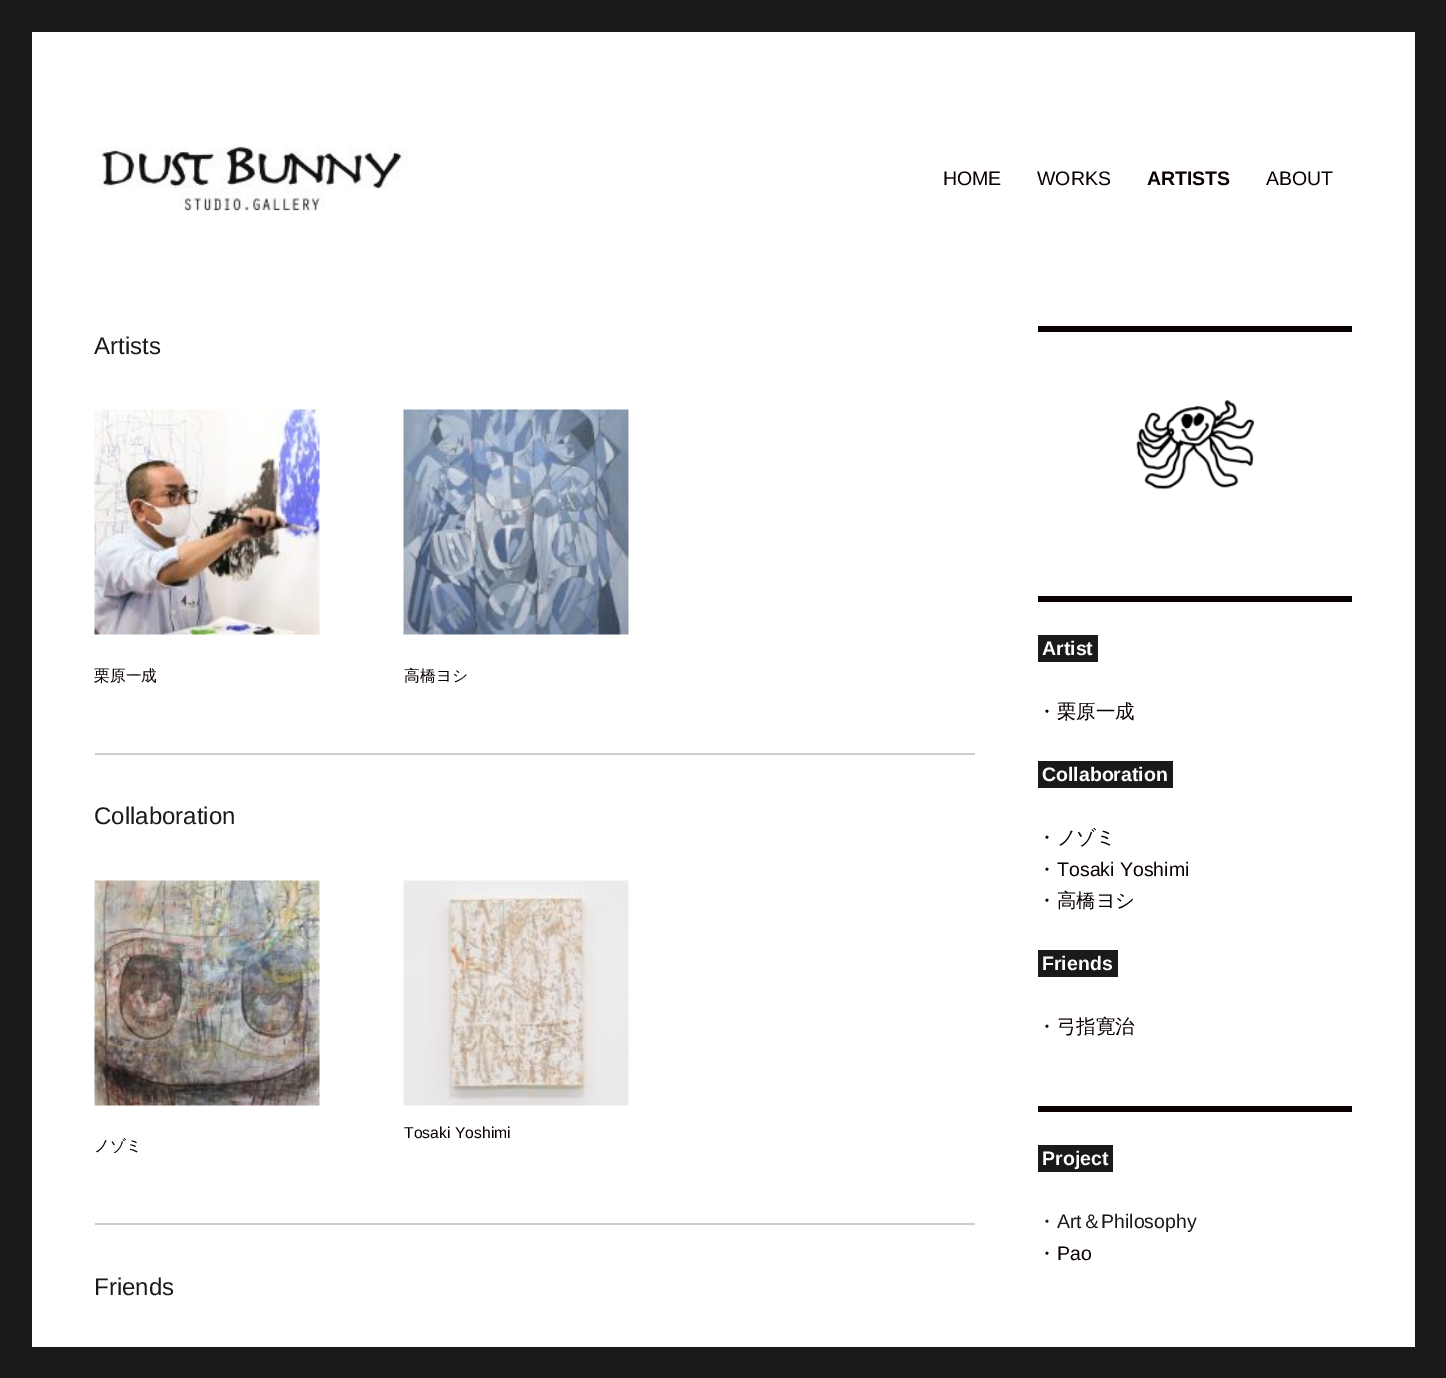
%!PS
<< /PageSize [1446 1378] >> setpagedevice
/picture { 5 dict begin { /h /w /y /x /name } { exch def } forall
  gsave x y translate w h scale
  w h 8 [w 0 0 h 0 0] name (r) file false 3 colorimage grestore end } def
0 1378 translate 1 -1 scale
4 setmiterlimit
0.102 setgray
0 0 1446 1378 rectfill
1 setgray
32 32 1383 1315 rectfill
(img1.rgb) 96 146 313 65 picture
/LiberationSans-Regular [19.5 0 0 -19.5 0 0] selectfont
0.039 0 0 setrgbcolor
943 185 moveto (HOME) show
1037 185 moveto (WORKS) show
/LiberationSans-Bold [19.5 0 0 -19.5 0 0] selectfont
1147 185 moveto (ARTISTS) show
/LiberationSans-Regular [19.5 0 0 -19.5 0 0] selectfont
1266 185 moveto (ABOUT) show
/LiberationSans-Regular [24 0 0 -24 0 0] selectfont
0.102 setgray
94 354 moveto (Artists) show
(img2.rgb) 94 409 226 226 picture
/WenQuanYiZenHei-Medium [15.75 0 0 -15.75 0 0] selectfont
0.039 0 0 setrgbcolor
94 681 moveto (栗原一成) show
(img3.rgb) 403 409 226 226 picture
404 681 moveto (高橋ヨシ) show
0.808 0.8 0.8 setrgbcolor
95 753 880 2 rectfill
/LiberationSans-Regular [24 0 0 -24 0 0] selectfont
0.102 setgray
94 824 moveto (Collaboration) show
(img4.rgb) 403 880 226 226 picture
/LiberationSans-Regular [15.75 0 0 -15.75 0 0] selectfont
0.039 0 0 setrgbcolor
404 1138 moveto (Tosaki Yoshimi) show
(img5.rgb) 94 880 226 226 picture
/WenQuanYiZenHei-Medium [15.75 0 0 -15.75 0 0] selectfont
94 1151 moveto (ノゾミ) show
0.808 0.8 0.8 setrgbcolor
95 1223 880 2 rectfill
/LiberationSans-Regular [24 0 0 -24 0 0] selectfont
0.102 setgray
94 1295 moveto (Friends) show
0.039 0 0 setrgbcolor
1038 326 314 6 rectfill
(img6.rgb) 1136 400 119 90 picture
1038 596 314 6 rectfill
0.102 setgray
1038 635 60 27 rectfill
/LiberationSans-Bold [19.5 0 0 -19.5 0 0] selectfont
1 setgray
1042 655 moveto (Artist) show
/WenQuanYiZenHei-Medium [19.5 0 0 -19.5 0 0] selectfont
0.039 0 0 setrgbcolor
1037 718 moveto (・栗原一成) show
0.102 setgray
1038 761 135 27 rectfill
/LiberationSans-Bold [19.5 0 0 -19.5 0 0] selectfont
1 setgray
1042 781 moveto (Collaboration) show
/WenQuanYiZenHei-Medium [19.5 0 0 -19.5 0 0] selectfont
0.039 0 0 setrgbcolor
1037 844 moveto (・ノゾミ) show
1037 876 moveto (・) show
/LiberationSans-Regular [19.5 0 0 -19.5 0 0] selectfont
1057 876 moveto (Tosaki Yoshimi) show
/WenQuanYiZenHei-Medium [19.5 0 0 -19.5 0 0] selectfont
1037 907 moveto (・高橋ヨシ) show
0.102 setgray
1038 950 80 27 rectfill
/LiberationSans-Bold [19.5 0 0 -19.5 0 0] selectfont
1 setgray
1042 970 moveto (Friends) show
/WenQuanYiZenHei-Medium [19.5 0 0 -19.5 0 0] selectfont
0.039 0 0 setrgbcolor
1037 1033 moveto (・弓指寛治) show
1038 1106 314 6 rectfill
0.102 setgray
1038 1145 75 27 rectfill
/LiberationSans-Bold [19.5 0 0 -19.5 0 0] selectfont
1 setgray
1042 1165 moveto (Project) show
/WenQuanYiZenHei-Medium [19.5 0 0 -19.5 0 0] selectfont
0.102 setgray
1037 1228 moveto (・) show
/LiberationSans-Regular [19.5 0 0 -19.5 0 0] selectfont
1057 1228 moveto (Art) show
/WenQuanYiZenHei-Medium [19.5 0 0 -19.5 0 0] selectfont
1082 1228 moveto (＆) show
/LiberationSans-Regular [19.5 0 0 -19.5 0 0] selectfont
1101 1228 moveto (Philosophy) show
/WenQuanYiZenHei-Medium [19.5 0 0 -19.5 0 0] selectfont
0.039 0 0 setrgbcolor
1037 1260 moveto (・) show
/LiberationSans-Regular [19.5 0 0 -19.5 0 0] selectfont
1057 1260 moveto (Pao) show
showpage
